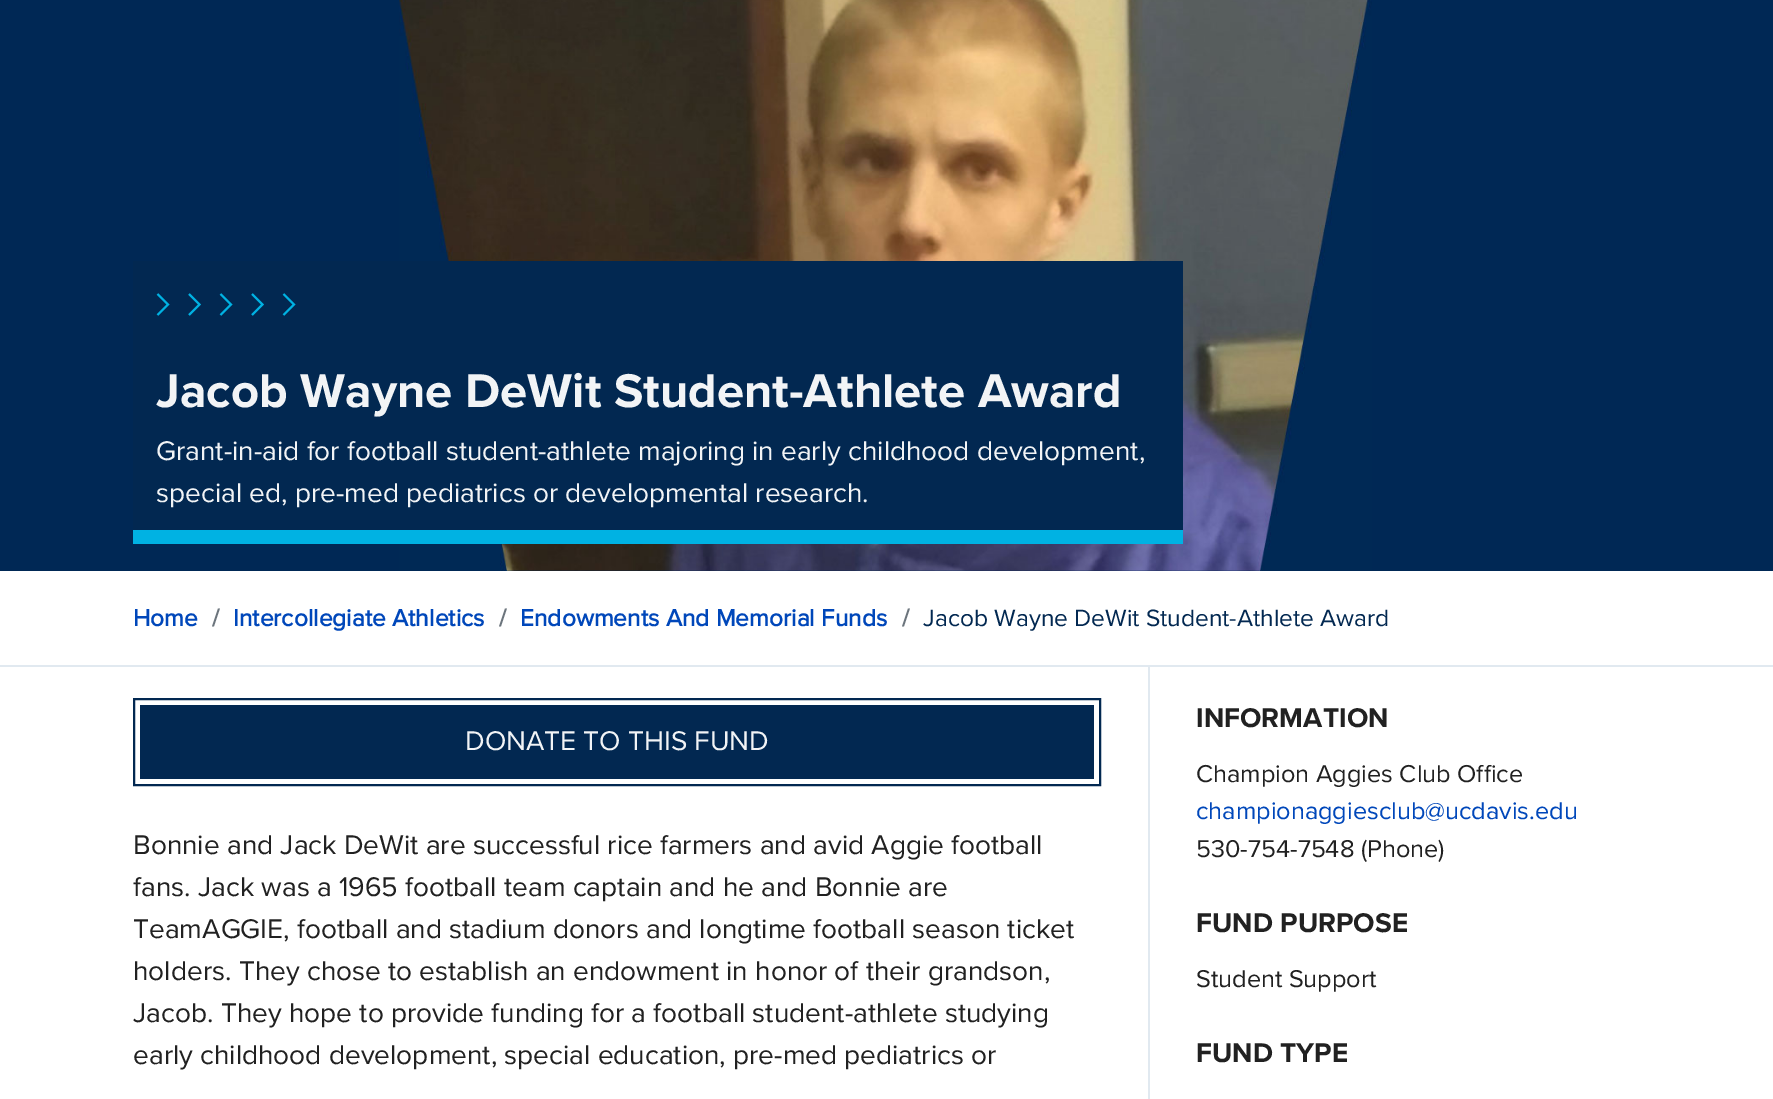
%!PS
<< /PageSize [1773 1099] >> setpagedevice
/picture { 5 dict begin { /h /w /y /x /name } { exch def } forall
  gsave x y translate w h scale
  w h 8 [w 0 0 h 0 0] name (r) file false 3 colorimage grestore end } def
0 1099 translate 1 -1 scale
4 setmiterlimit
1 setgray
0 0 1773 1099 rectfill
0 0.157 0.333 setrgbcolor
0 0 1773 571 rectfill
(img1.rgb) 399 0 973 571 picture
0.008 0.157 0.318 setrgbcolor
133 261 1050 269 rectfill
0 0.698 0.89 setrgbcolor
133 530 1050 14 rectfill
1.8 setlinewidth
newpath 189 315 moveto 199.5 304.5 lineto 189 294 lineto 157.5 315 moveto 168 304.5 lineto 157.5 294 lineto stroke
newpath 220.5 315 moveto 231 304.5 lineto 220.5 294 lineto stroke
newpath 283.5 315 moveto 294 304.5 lineto 283.5 294 lineto 252 315 moveto 262.5 304.5 lineto 252 294 lineto stroke
/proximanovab-Bold [49 0 0 -49 0 0] selectfont
0.949 0.957 0.965 setrgbcolor
156 407 moveto (Jacob Wayne DeWit Student-Athlete Award) show
/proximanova-Regular [28 0 0 -28 0 0] selectfont
156 460 moveto (Grant-in-aid for football student-athlete majoring in early childhood development,) show
156 502 moveto (special ed, pre-med pediatrics or developmental research.) show
0.882 0.914 0.941 setrgbcolor
0 665 1773 2 rectfill
/proximanova-Bold [24.5 0 0 -24.5 0 0] selectfont
0 0.278 0.729 setrgbcolor
133 626 moveto (Home) show
0.424 0.459 0.49 setrgbcolor
212 626 moveto (/) show
0 0.278 0.729 setrgbcolor
233 626 moveto (Intercollegiate Athletics) show
0.424 0.459 0.49 setrgbcolor
499 626 moveto (/) show
0 0.278 0.729 setrgbcolor
520 626 moveto (Endowments And Memorial Funds) show
0.424 0.459 0.49 setrgbcolor
902 626 moveto (/) show
/proximanova-Regular [24.5 0 0 -24.5 0 0] selectfont
0.008 0.157 0.318 setrgbcolor
923 626 moveto (Jacob Wayne DeWit Student-Athlete Award) show
2 setlinewidth
134 699 966 86 rectstroke
140 705 954 74 rectfill
/proximanova-Regular [28 0 0 -28 0 0] selectfont
0.949 0.957 0.965 setrgbcolor
465 750 moveto (DONATE TO THIS FUND) show
0.129 setgray
133 854 moveto (Bonnie and Jack DeWit are successful rice farmers and avid Aggie football) show
133 896 moveto (fans. Jack was a 1965 football team captain and he and Bonnie are) show
133 938 moveto (TeamAGGIE, football and stadium donors and longtime football season ticket) show
133 980 moveto (holders. They chose to establish an endowment in honor of their grandson,) show
133 1022 moveto (Jacob. They hope to provide funding for a football student-athlete studying) show
133 1064 moveto (early childhood development, special education, pre-med pediatrics or) show
0.882 0.914 0.941 setrgbcolor
1148 667 2 432 rectfill
/proximanovab-Bold [28 0 0 -28 0 0] selectfont
0.129 setgray
1196 727 moveto (INFORMATION) show
/proximanova-Regular [25.25 0 0 -25.25 0 0] selectfont
1196 782 moveto (Champion Aggies Club Office) show
0 0.278 0.729 setrgbcolor
1196 819 moveto (championaggiesclub@ucdavis.edu) show
0.129 setgray
1196 857 moveto (530-754-7548 \(Phone\)) show
/proximanovab-Bold [28 0 0 -28 0 0] selectfont
1196 932 moveto (FUND PURPOSE) show
/proximanova-Regular [25.25 0 0 -25.25 0 0] selectfont
1196 987 moveto (Student Support) show
/proximanovab-Bold [28 0 0 -28 0 0] selectfont
1196 1062 moveto (FUND TYPE) show
showpage
